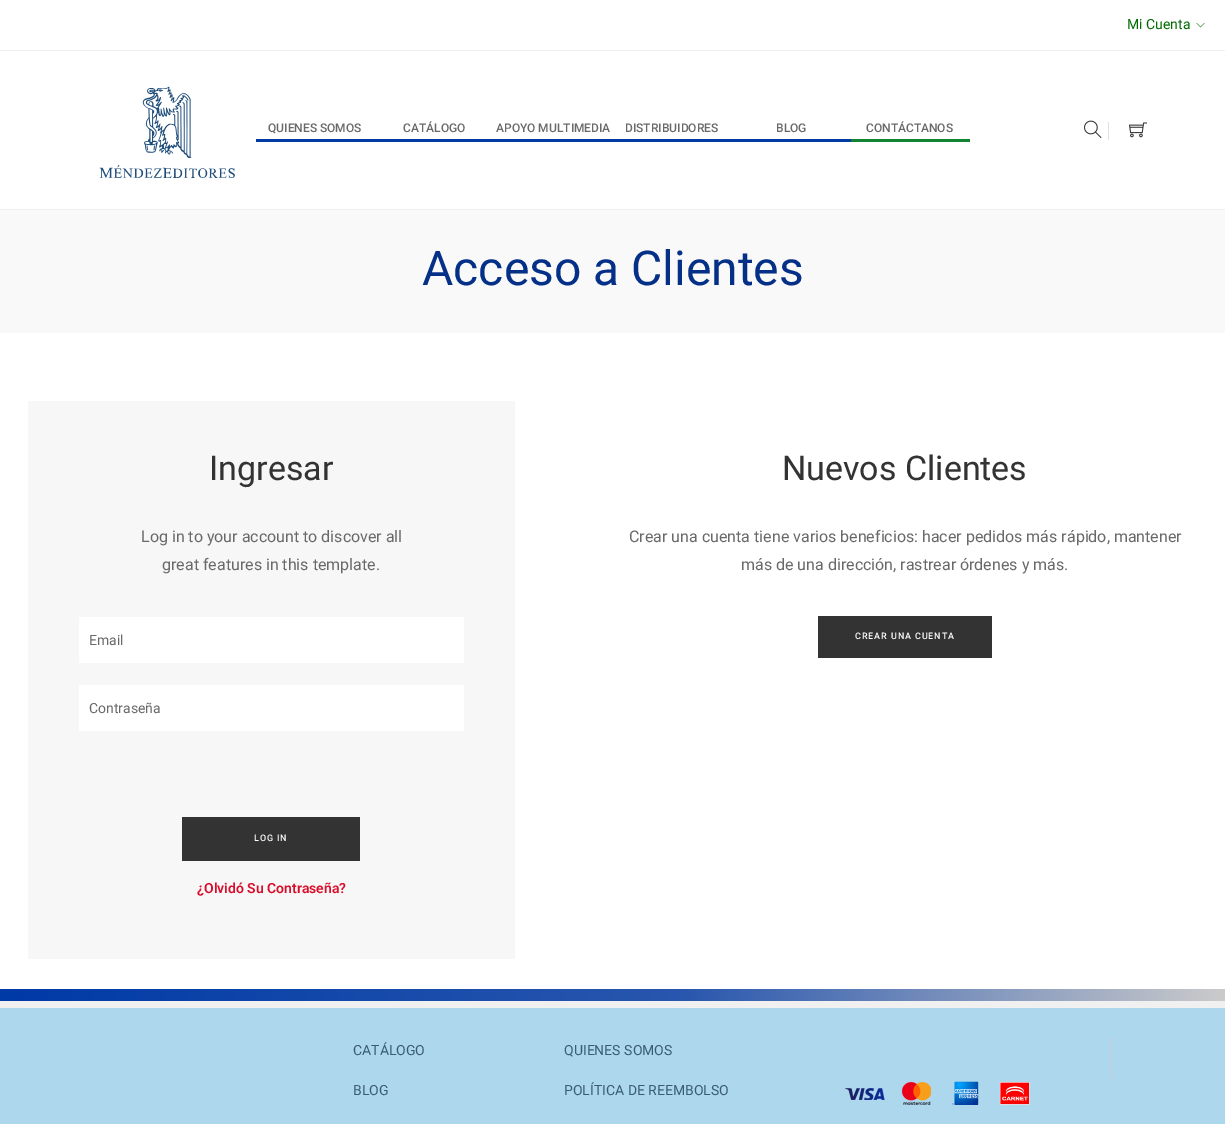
%!PS
<< /PageSize [1225 1124] >> setpagedevice
/picture { 5 dict begin { /h /w /y /x /name } { exch def } forall
  gsave x y translate w h scale
  w h 8 [w 0 0 h 0 0] name (r) file false 3 colorimage grestore end } def
0 1124 translate 1 -1 scale
4 setmiterlimit
1 setgray
0 0 1225 1124 rectfill
0.933 setgray
0 50 1225 1 rectfill
/Roboto-Regular [14 0 0 -14 0 0] selectfont
0.004 0.424 0.016 setrgbcolor
1127 29 moveto (Mi Cuenta) show
(img1.rgb) 1196 23 9 5 picture
0.933 setgray
0 209 1225 1 rectfill
(img2.rgb) 99 86 136 92 picture
0 0.227 0.639 setrgbcolor
256 139 595 3 rectfill
/Roboto-Medium [12 0 0 -12 0 0] selectfont
0.412 setgray
268 132 moveto (QUIENES SOMOS) show
403 132 moveto (CATÁLOGO) show
496 132 moveto (APOYO MULTIMEDIA) show
625 132 moveto (DISTRIBUIDORES) show
776 132 moveto (BLOG) show
0.063 0.518 0.2 setrgbcolor
851 139 119 3 rectfill
0.412 setgray
866 132 moveto (CONTÁCTANOS) show
(img3.rgb) 1084 120 18 19 picture
0.878 setgray
1108 122 1 18 rectfill
(img4.rgb) 1129 122 18 16 picture
0.976 setgray
0 210 1225 123 rectfill
/Roboto-Regular [48 0 0 -48 0 0] selectfont
0.02 0.188 0.533 setrgbcolor
422 285 moveto (Acceso a Clientes) show
0.969 setgray
28 401 487 558 rectfill
/Roboto-Regular [34 0 0 -34 0 0] selectfont
0.2 setgray
209 480 moveto (Ingresar) show
/Roboto-Regular [16 0 0 -16 0 0] selectfont
0.412 setgray
141 542 moveto (Log in to your account to discover all) show
162 570 moveto (great features in this template.) show
1 setgray
79 617 385 46 rectfill
/Roboto-Regular [14 0 0 -14 0 0] selectfont
0.412 setgray
89 645 moveto (Email) show
1 setgray
79 685 385 46 rectfill
0.412 setgray
89 713 moveto (Contraseña) show
0.2 setgray
182 817 178 44 rectfill
/Roboto-Medium [9 0 0 -9 0 0] selectfont
1 setgray
254 841 moveto 0.9 0 (LOG IN) ashow
/Roboto-SemiBold [14 0 0 -14 0 0] selectfont
0.855 0.055 0.169 setrgbcolor
197 893 moveto (¿Olvidó Su Contraseña?) show
/Roboto-Regular [34 0 0 -34 0 0] selectfont
0.2 setgray
782 480 moveto (Nuevos Clientes) show
/Roboto-Regular [16 0 0 -16 0 0] selectfont
0.412 setgray
629 542 moveto (Crear una cuenta tiene varios beneficios: hacer pedidos más rápido, mantener) show
741 570 moveto (más de una dirección, rastrear órdenes y más.) show
0.2 setgray
818 616 174 42 rectfill
/Roboto-Medium [9 0 0 -9 0 0] selectfont
1 setgray
855 639 moveto 0.9 0 (CREAR UNA CUENTA) ashow
0.941 setgray
0 1001 1225 6 rectfill
gsave newpath 0 989 moveto 1225 989 lineto 1225 1001 lineto 0 1001 lineto closepath clip newpath
<< /ShadingType 2 /ColorSpace /DeviceRGB /Coords [0 995 1225 995] /Extend [true true] /Function << /FunctionType 3 /Domain [0 1] /Functions [<< /FunctionType 2 /Domain [0 1] /C0 [0 0.227 0.655] /C1 [0.161 0.341 0.682] /N 1 >> << /FunctionType 2 /Domain [0 1] /C0 [0.161 0.341 0.682] /C1 [0.796 0.796 0.796] /N 1 >>] /Bounds [0.56] /Encode [0 1 0 1] >> >> shfill grestore
0.678 0.843 0.929 setrgbcolor
0 1008 1225 116 rectfill
0.945 setgray
0 1007 1225 1 rectfill
/Roboto-Regular [14 0 0 -14 0 0] selectfont
0.22 0.361 0.459 setrgbcolor
353 1055 moveto (CATÁLOGO) show
353 1095 moveto (BLOG) show
564 1055 moveto (QUIENES SOMOS) show
564 1095 moveto (POLÍTICA DE REEMBOLSO) show
0.8 setgray
1111 1038 1 41 rectfill
(img5.rgb) 845 1081 185 24 picture
showpage
